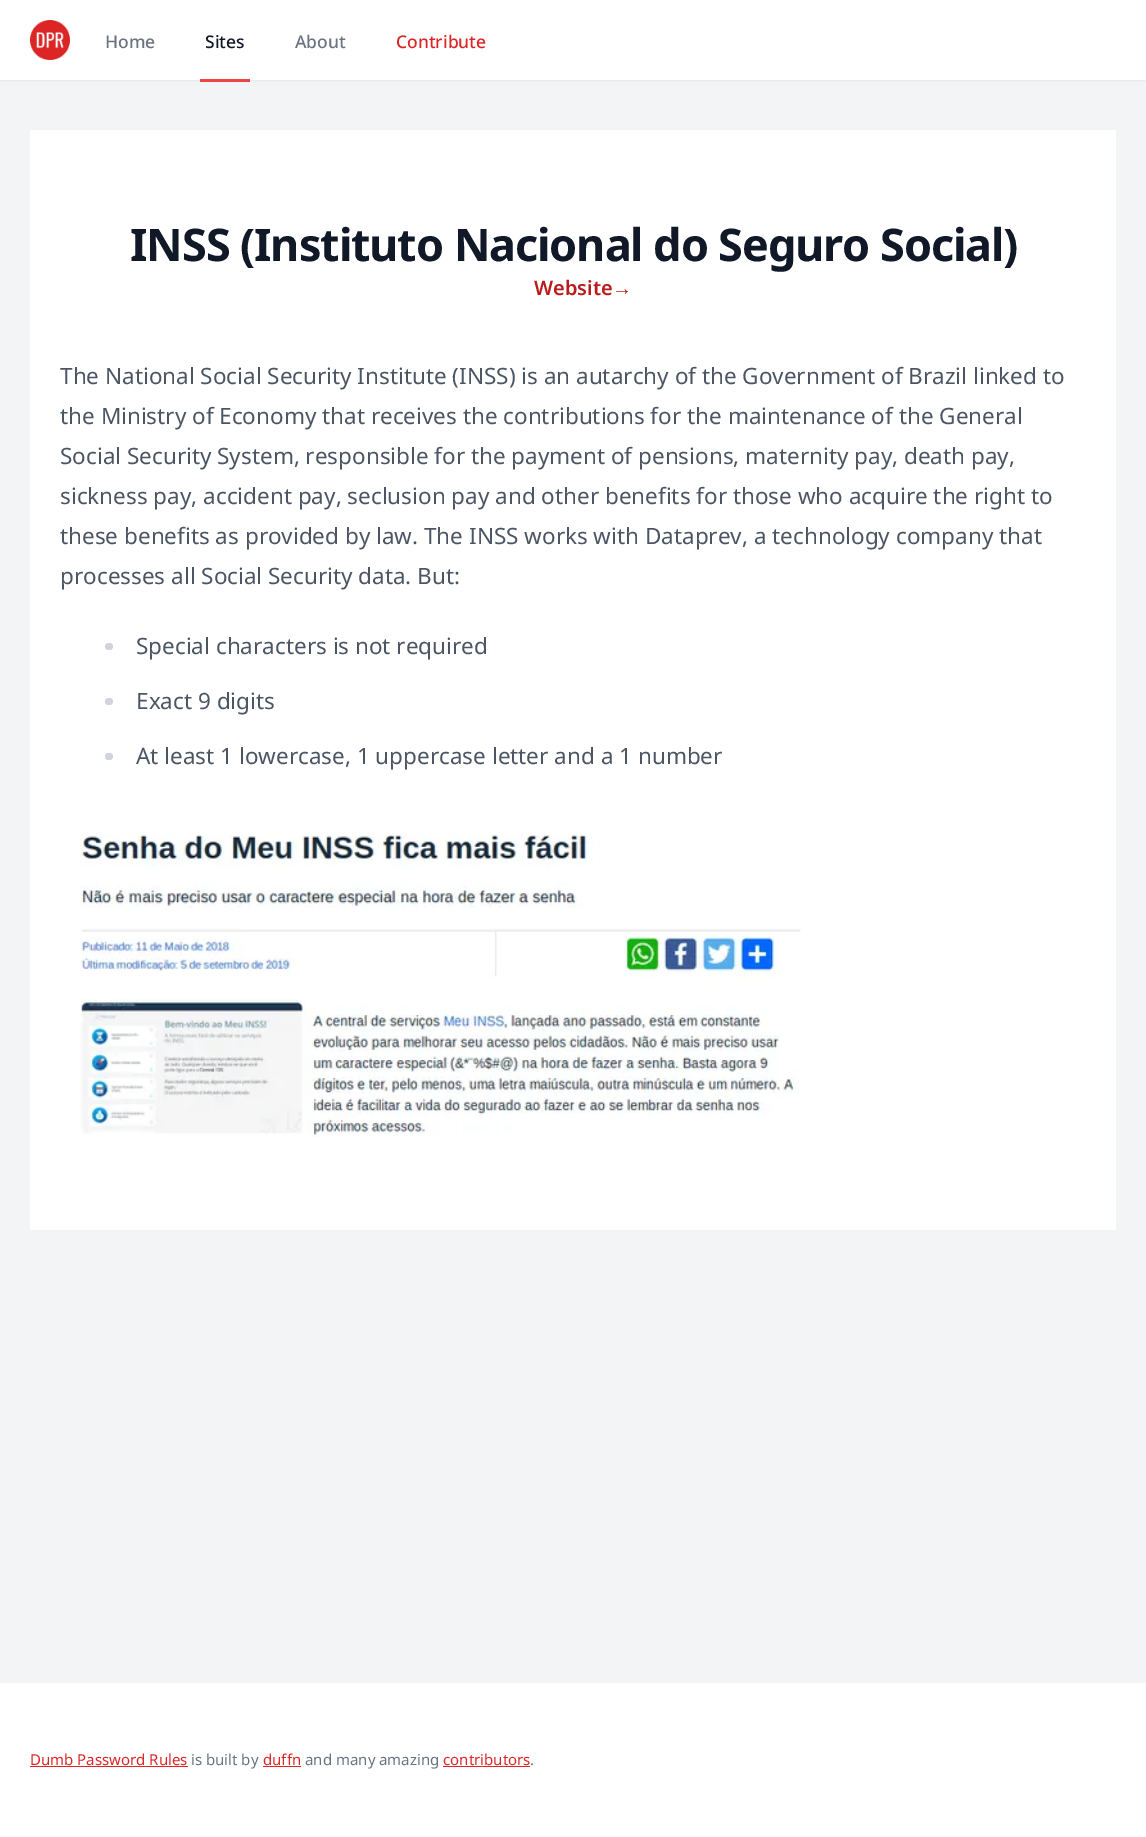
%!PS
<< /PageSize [1146 1837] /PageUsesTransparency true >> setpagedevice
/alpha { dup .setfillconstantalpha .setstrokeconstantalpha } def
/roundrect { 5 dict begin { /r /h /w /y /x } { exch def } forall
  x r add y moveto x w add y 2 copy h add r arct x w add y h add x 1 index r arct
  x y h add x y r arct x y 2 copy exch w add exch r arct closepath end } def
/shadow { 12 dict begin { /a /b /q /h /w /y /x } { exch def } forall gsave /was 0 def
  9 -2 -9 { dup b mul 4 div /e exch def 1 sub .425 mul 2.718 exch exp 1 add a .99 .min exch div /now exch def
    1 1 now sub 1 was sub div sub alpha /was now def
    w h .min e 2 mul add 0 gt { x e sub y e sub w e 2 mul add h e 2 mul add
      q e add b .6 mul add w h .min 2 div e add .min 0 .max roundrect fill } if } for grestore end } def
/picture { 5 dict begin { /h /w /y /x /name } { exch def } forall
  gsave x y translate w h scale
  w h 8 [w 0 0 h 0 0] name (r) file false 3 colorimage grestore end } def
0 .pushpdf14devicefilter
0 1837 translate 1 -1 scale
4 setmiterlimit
0.953 0.957 0.965 setrgbcolor
0 0 1146 1837 rectfill
0 setgray
0 1 1146 80 0 1 0.05 shadow
1 setgray
0 0 1146 80 rectfill
(img1.rgb) 30 20 40 40 picture
/NotoSans-Medium [17.5 0 0 -17.5 0 0] selectfont
0.42 0.447 0.502 setrgbcolor
105 48 moveto (Home) show
0.937 0.267 0.267 setrgbcolor
200 79 50 3 rectfill
0.067 0.094 0.153 setrgbcolor
205 48 moveto (Sites) show
0.42 0.447 0.502 setrgbcolor
295 48 moveto (About) show
0.863 0.149 0.149 setrgbcolor
396 48 moveto (Contribute) show
1 setgray
30 130 1086 1100 rectfill
/NotoSans-Bold [45 0 0 -45 0 0] selectfont
0.067 0.094 0.153 setrgbcolor
130 261 moveto -1.1 0 (INSS \(Instituto Nacional do Seguro Social\)) ashow
/NotoSans-SemiBold [20 0 0 -20 0 0] selectfont
0.725 0.11 0.11 setrgbcolor
534 295 moveto (Website) show
/LiberationSans-Bold [20 0 0 -20 0 0] selectfont
612 295 moveto (→) show
/NotoSans-Regular [22.5 0 0 -22.5 0 0] selectfont
0.294 0.333 0.388 setrgbcolor
60 384 moveto (The National Social Security Institute \(INSS\) is an autarchy of the Government of Brazil linked to) show
60 424 moveto (the Ministry of Economy that receives the contributions for the maintenance of the General) show
60 464 moveto (Social Security System, responsible for the payment of pensions, maternity pay, death pay,) show
60 504 moveto (sickness pay, accident pay, seclusion pay and other benefits for those who acquire the right to) show
60 544 moveto (these benefits as provided by law. The INSS works with Dataprev, a technology company that) show
60 584 moveto (processes all Social Security data. But:) show
0.82 0.835 0.859 setrgbcolor
105 643 8 7 3.5 roundrect fill
0.294 0.333 0.388 setrgbcolor
136 654 moveto (Special characters is not required) show
0.82 0.835 0.859 setrgbcolor
105 698 8 7 3.5 roundrect fill
0.294 0.333 0.388 setrgbcolor
136 709 moveto (Exact 9 digits) show
0.82 0.835 0.859 setrgbcolor
105 753 8 7 3.5 roundrect fill
0.294 0.333 0.388 setrgbcolor
136 764 moveto (At least 1 lowercase, 1 uppercase letter and a 1 number) show
(img2.rgb) 79 834 722 303 picture
1 setgray
0 1683 1146 154 rectfill
/NotoSans-Regular [15 0 0 -15 0 0] selectfont
0.863 0.149 0.149 setrgbcolor
30 1765 moveto (Dumb Password Rules) show
30 1766 158 1 rectfill
0.42 0.447 0.502 setrgbcolor
191 1765 moveto (is built by) show
0.863 0.149 0.149 setrgbcolor
263 1765 moveto (duffn) show
263 1766 38 1 rectfill
0.42 0.447 0.502 setrgbcolor
305 1765 moveto (and many amazing) show
0.863 0.149 0.149 setrgbcolor
443 1765 moveto (contributors) show
443 1766 87 1 rectfill
0.42 0.447 0.502 setrgbcolor
530 1765 moveto (.) show
.poppdf14devicefilter showpage
